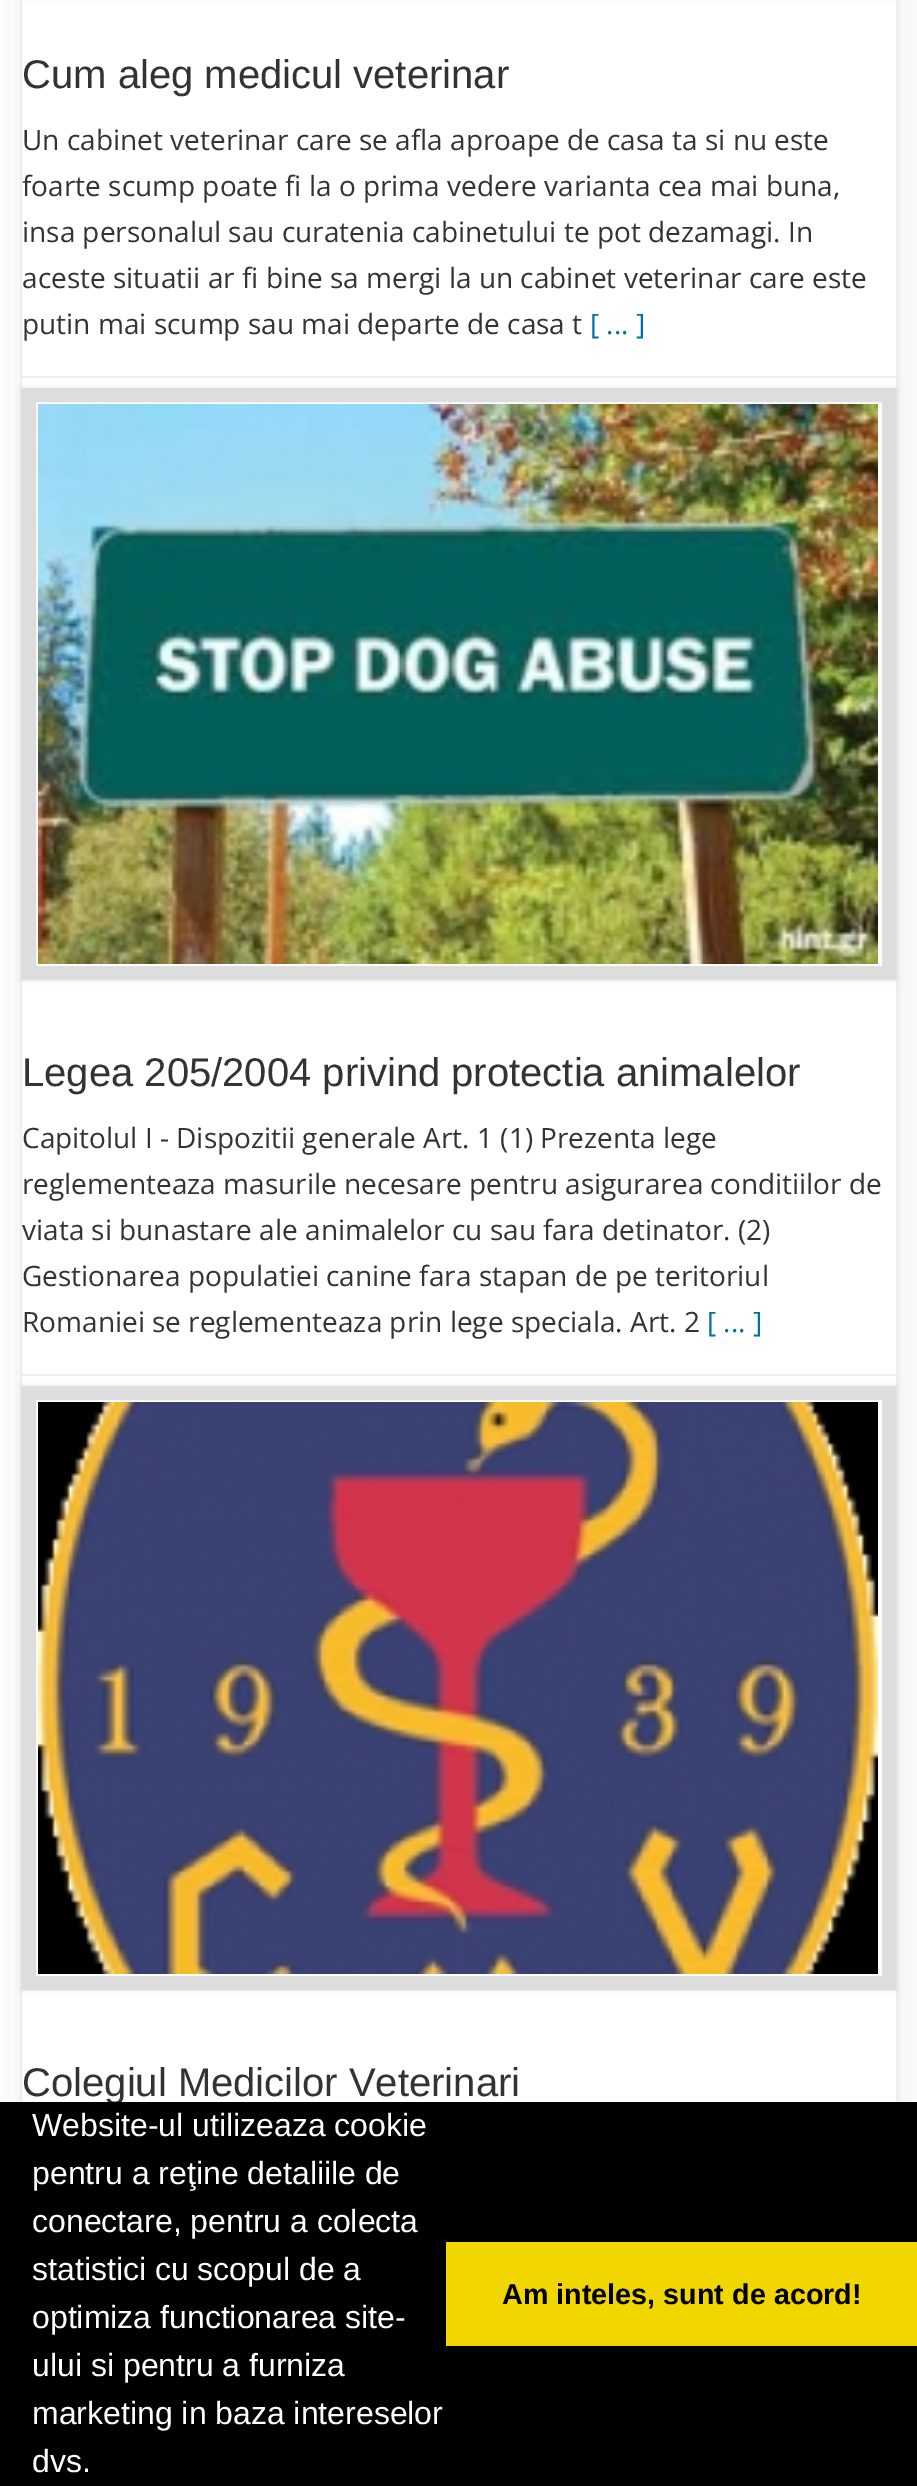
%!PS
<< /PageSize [917 2486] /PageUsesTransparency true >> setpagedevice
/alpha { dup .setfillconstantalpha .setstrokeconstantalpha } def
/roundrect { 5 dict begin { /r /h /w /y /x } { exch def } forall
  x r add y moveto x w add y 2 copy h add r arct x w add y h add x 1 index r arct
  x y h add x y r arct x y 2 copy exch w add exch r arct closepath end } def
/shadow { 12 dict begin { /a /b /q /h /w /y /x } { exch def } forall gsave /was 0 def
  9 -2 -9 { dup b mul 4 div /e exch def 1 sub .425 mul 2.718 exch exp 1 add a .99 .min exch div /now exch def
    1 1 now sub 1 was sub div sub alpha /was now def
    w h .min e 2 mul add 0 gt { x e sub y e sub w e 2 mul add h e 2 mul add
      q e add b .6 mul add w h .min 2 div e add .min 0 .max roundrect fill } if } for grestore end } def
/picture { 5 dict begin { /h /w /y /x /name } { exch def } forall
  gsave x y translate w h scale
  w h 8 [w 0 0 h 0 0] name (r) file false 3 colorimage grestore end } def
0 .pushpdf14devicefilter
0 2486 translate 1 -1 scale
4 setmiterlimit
1 setgray
0 0 917 2486 rectfill
gsave
newpath 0 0 moveto 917 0 lineto 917 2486 lineto 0 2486 lineto closepath 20 -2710 moveto 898 -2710 lineto 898 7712 lineto 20 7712 lineto closepath eoclip newpath
0.933 setgray
20 -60 886 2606 0 20 1 shadow
grestore
0.933 setgray
2 setlinewidth
21 -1 876 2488 rectstroke
/LiberationSans-Regular [40 0 0 -40 0 0] selectfont
0.2 setgray
22 88 moveto (Cum aleg medicul veterinar) show
/OpenSans-Regular [28 0 0 -28 0 0] selectfont
22 150 moveto (Un cabinet veterinar care se afla aproape de casa ta si nu este) show
22 196 moveto (foarte scump poate fi la o prima vedere varianta cea mai buna,) show
22 242 moveto (insa personalul sau curatenia cabinetului te pot dezamagi. In) show
22 288 moveto (aceste situatii ar fi bine sa mergi la un cabinet veterinar care este) show
22 334 moveto (putin mai scump sau mai departe de casa t) show
0 0.443 0.647 setrgbcolor
590 334 moveto ([ ... ]) show
0.933 setgray
22 376 874 2 rectfill
gsave
newpath 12 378 moveto 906 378 lineto 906 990 lineto 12 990 lineto closepath 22 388 moveto 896 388 lineto 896 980 lineto 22 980 lineto closepath eoclip newpath
0 setgray
22 388 874 592 0 3 0.1 shadow
grestore
0.867 setgray
14 setlinewidth
29 395 860 578 rectstroke
(img1.rgb) 38 404 840 560 picture
/LiberationSans-Regular [40 0 0 -40 0 0] selectfont
0.2 setgray
22 1086 moveto (Legea 205/2004 privind protectia animalelor) show
/OpenSans-Regular [28 0 0 -28 0 0] selectfont
22 1148 moveto (Capitolul I - Dispozitii generale Art. 1 \(1\) Prezenta lege) show
22 1194 moveto (reglementeaza masurile necesare pentru asigurarea conditiilor de) show
22 1240 moveto (viata si bunastare ale animalelor cu sau fara detinator. \(2\)) show
22 1286 moveto (Gestionarea populatiei canine fara stapan de pe teritoriul) show
22 1332 moveto (Romaniei se reglementeaza prin lege speciala. Art. 2) show
0 0.443 0.647 setrgbcolor
707 1332 moveto ([ ... ]) show
0.933 setgray
22 1374 874 2 rectfill
gsave
newpath 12 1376 moveto 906 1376 lineto 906 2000 lineto 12 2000 lineto closepath 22 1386 moveto 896 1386 lineto 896 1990 lineto 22 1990 lineto closepath eoclip newpath
0 setgray
22 1386 874 604 0 3 0.1 shadow
grestore
0.867 setgray
29 1393 860 590 rectstroke
(img2.rgb) 38 1402 840 572 picture
/LiberationSans-Regular [40 0 0 -40 0 0] selectfont
0.2 setgray
22 2096 moveto (Colegiul Medicilor Veterinari) show
0 setgray
0 2102 917 384 rectfill
/LiberationSans-Regular [32 0 0 -32 0 0] selectfont
1 setgray
32 2136 moveto (Website-ul utilizeaza cookie) show
32 2184 moveto (pentru a reţine detaliile de) show
32 2232 moveto (conectare, pentru a colecta) show
32 2280 moveto (statistici cu scopul de a) show
32 2328 moveto (optimiza functionarea site-) show
32 2376 moveto (ului si pentru a furniza) show
32 2424 moveto (marketing in baza intereselor) show
32 2472 moveto (dvs.) show
0.945 0.839 0 setrgbcolor
446 2242 471 104 rectfill
/LiberationSans-Bold [28.75 0 0 -28.75 0 0] selectfont
0 setgray
502 2304 moveto (Am inteles, sunt de acord!) show
.poppdf14devicefilter showpage
